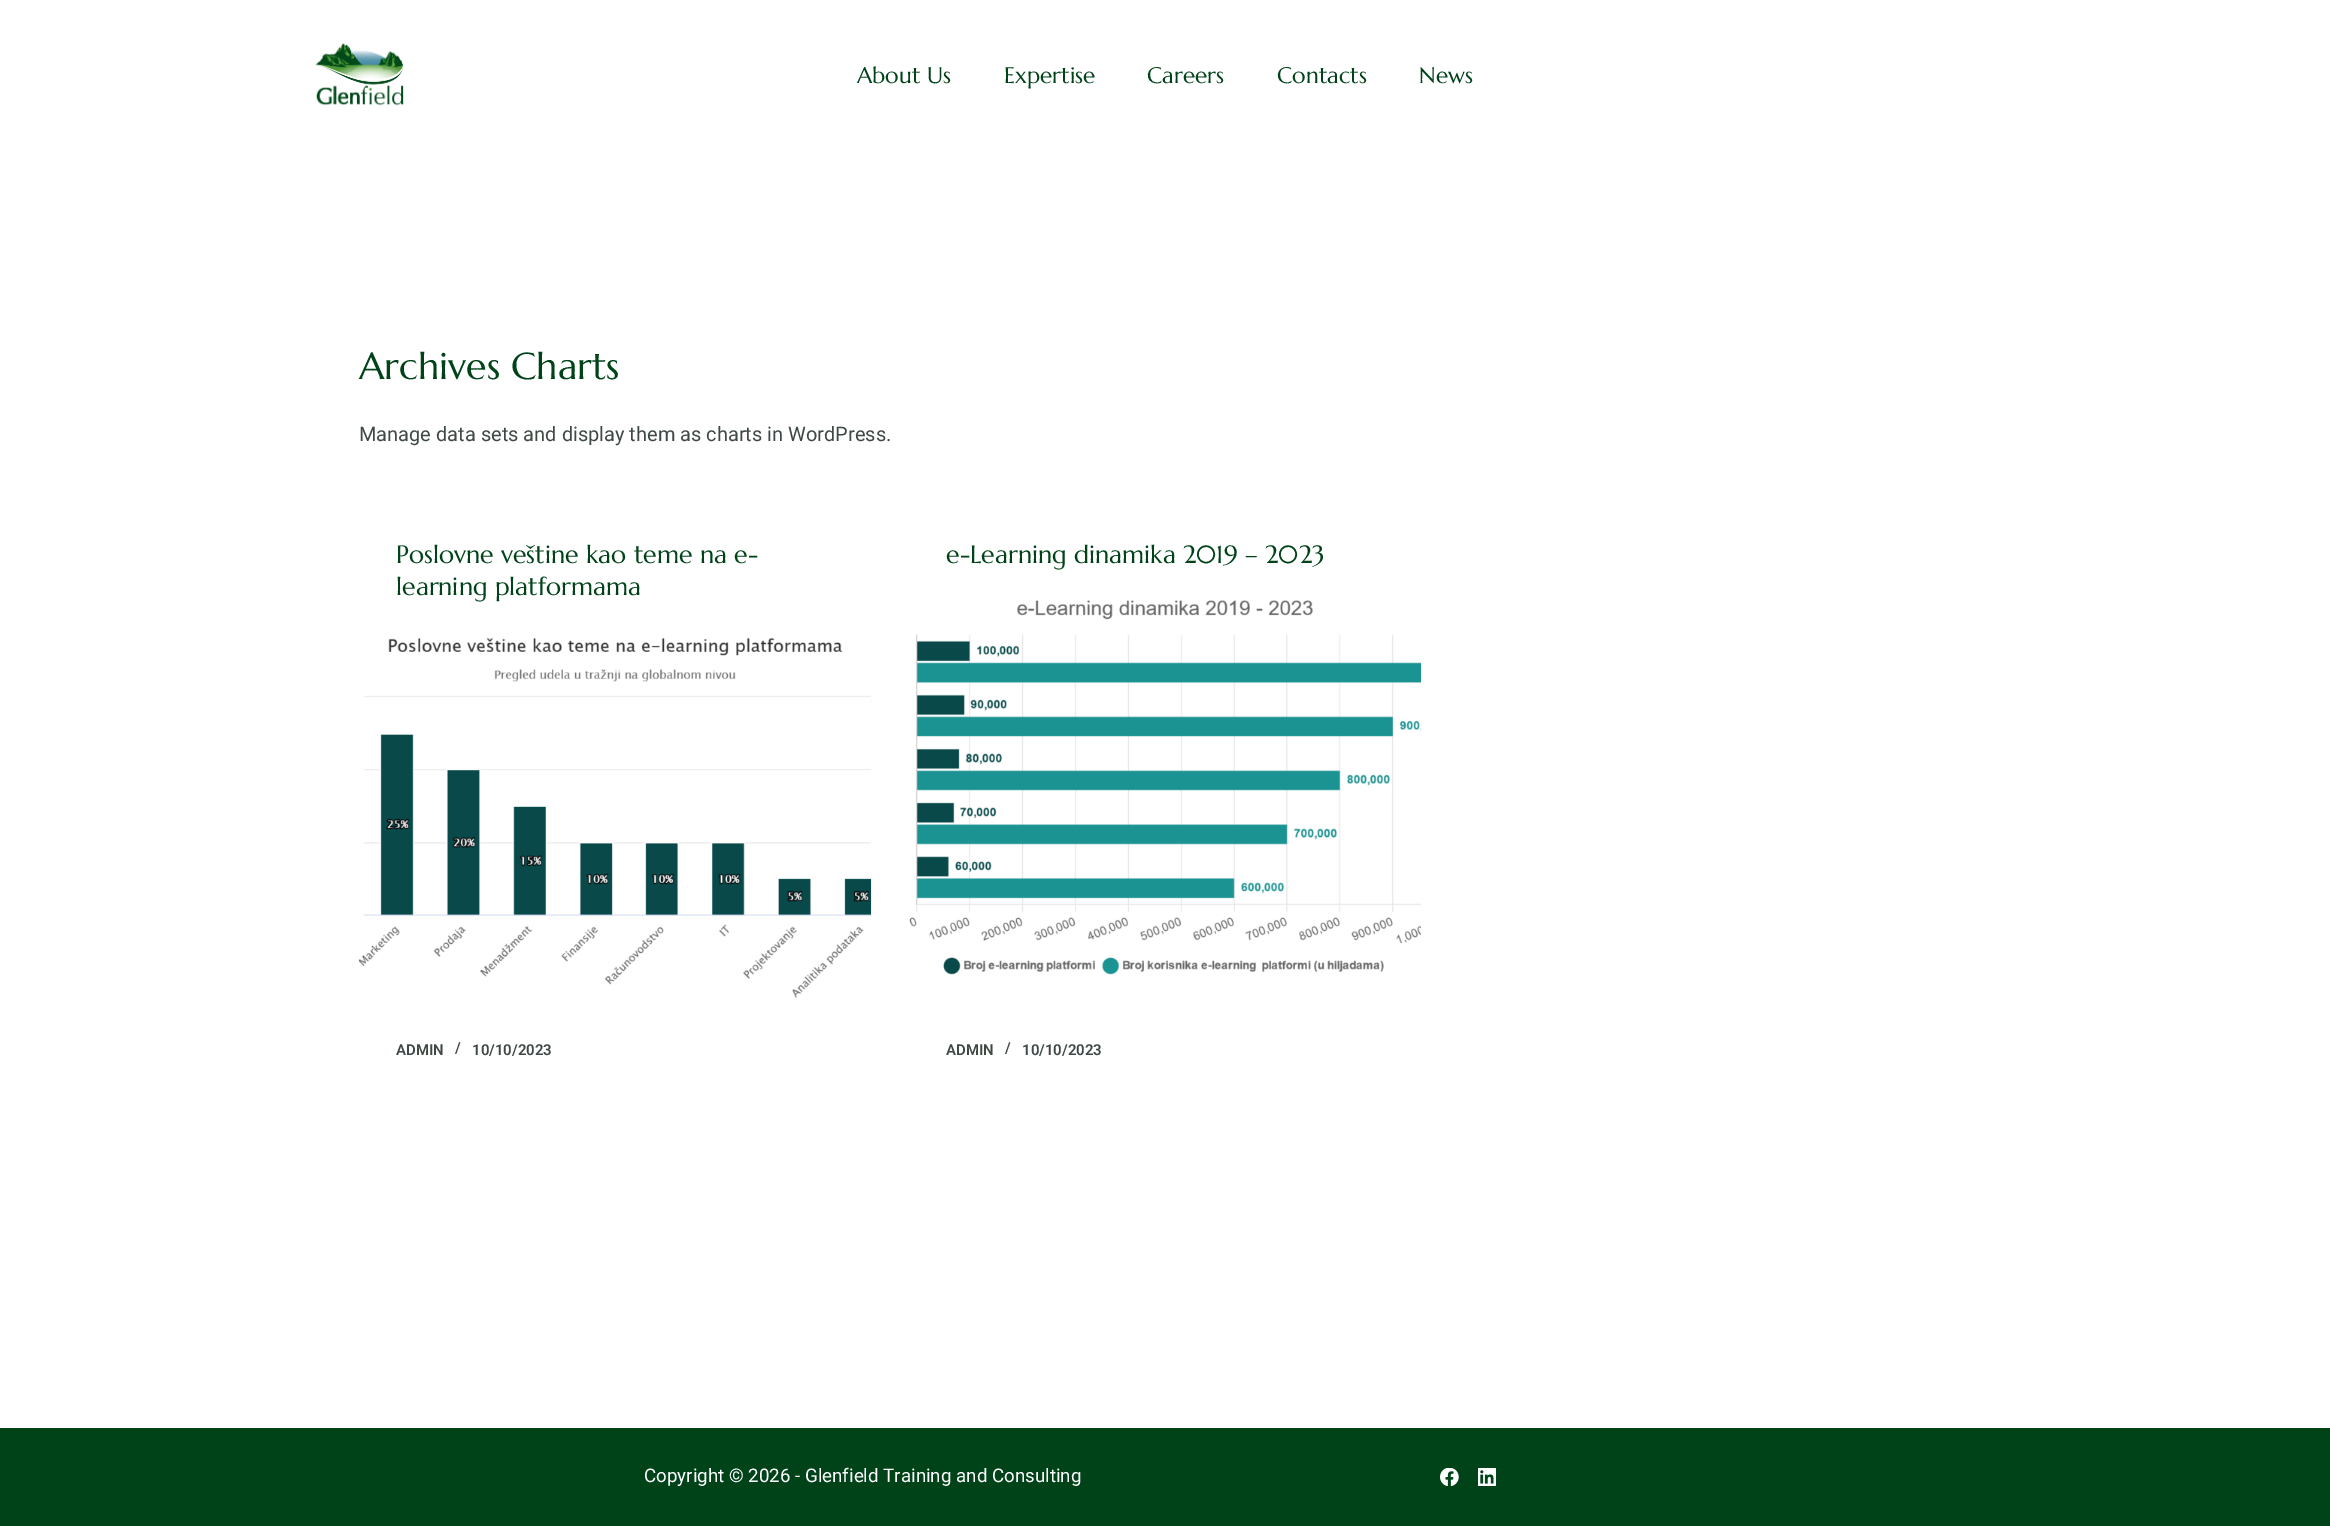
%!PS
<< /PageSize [2330 1526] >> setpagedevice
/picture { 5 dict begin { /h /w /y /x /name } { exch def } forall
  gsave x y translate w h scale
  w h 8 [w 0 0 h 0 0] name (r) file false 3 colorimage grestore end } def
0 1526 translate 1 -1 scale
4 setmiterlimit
1 setgray
0 0 2330 1526 rectfill
(img1.rgb) 315 43 89 63 picture
/Marcellus-Regular [22.5 0 0 -22.5 0 0] selectfont
0 0.263 0.098 setrgbcolor
857 83 moveto (About Us) show
1004 83 moveto (Expertise) show
1147 83 moveto (Careers) show
1277 83 moveto (Contacts) show
1419 83 moveto (News) show
/Marcellus-Regular [37.5 0 0 -37.5 0 0] selectfont
359 379 moveto (Archives Charts) show
/Roboto-Regular [20 0 0 -20 0 0] selectfont
0.247 0.286 0.263 setrgbcolor
359 441 moveto (Manage data sets and display them as charts in WordPress.) show
/Marcellus-Regular [25 0 0 -25 0 0] selectfont
0 0.263 0.098 setrgbcolor
396 563 moveto (Poslovne veštine kao teme na e-) show
396 595 moveto (learning platformama) show
(img2.rgb) 358 637 514 361 picture
/Roboto-SemiBold [15 0 0 -15 0 0] selectfont
0.247 0.286 0.263 setrgbcolor
396 1055 moveto (ADMIN) show
455 1053 moveto (/) show
472 1055 moveto (10/10/2023) show
/Marcellus-Regular [25 0 0 -25 0 0] selectfont
0 0.263 0.098 setrgbcolor
946 563 moveto (e-Learning dinamika 2019 – 2023) show
(img3.rgb) 909 600 513 375 picture
/Roboto-SemiBold [15 0 0 -15 0 0] selectfont
0.247 0.286 0.263 setrgbcolor
946 1055 moveto (ADMIN) show
1005 1053 moveto (/) show
1022 1055 moveto (10/10/2023) show
0 0.263 0.098 setrgbcolor
0 1428 2330 98 rectfill
/Roboto-Regular [18.75 0 0 -18.75 0 0] selectfont
1 setgray
644 1482 moveto (Copyright © 2026 - Glenfield Training and Consulting) show
(img4.rgb) 1440 1468 19 18 picture
(img5.rgb) 1478 1468 18 18 picture
showpage
